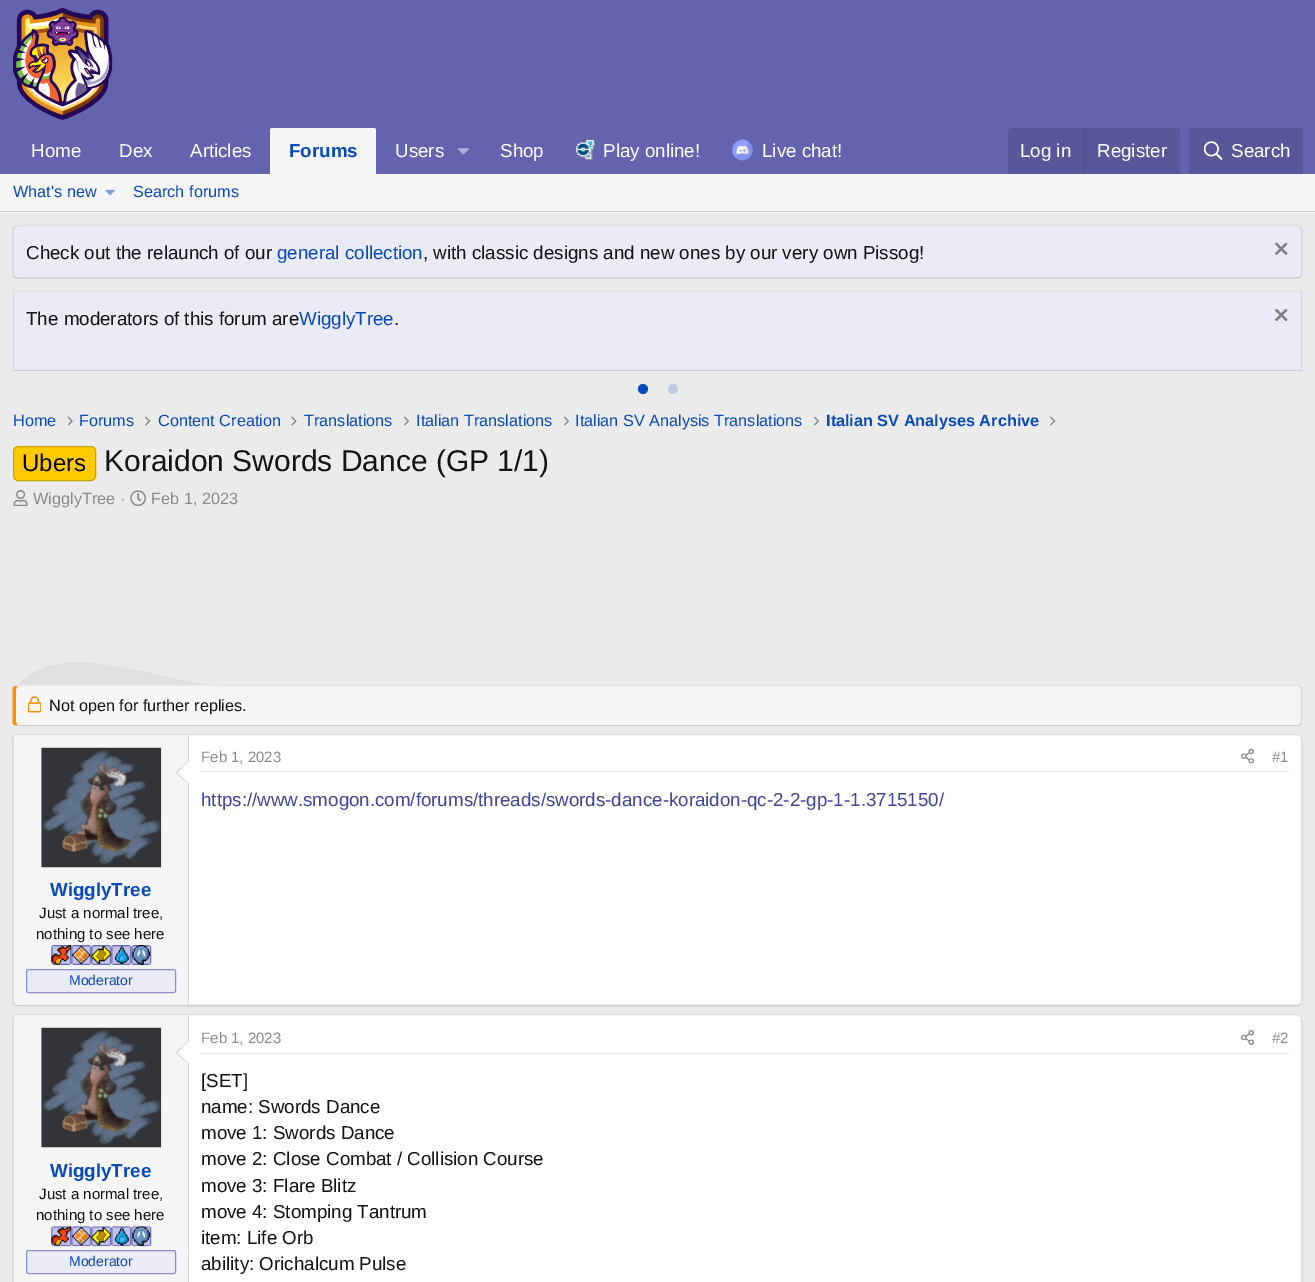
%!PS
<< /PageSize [1315 1282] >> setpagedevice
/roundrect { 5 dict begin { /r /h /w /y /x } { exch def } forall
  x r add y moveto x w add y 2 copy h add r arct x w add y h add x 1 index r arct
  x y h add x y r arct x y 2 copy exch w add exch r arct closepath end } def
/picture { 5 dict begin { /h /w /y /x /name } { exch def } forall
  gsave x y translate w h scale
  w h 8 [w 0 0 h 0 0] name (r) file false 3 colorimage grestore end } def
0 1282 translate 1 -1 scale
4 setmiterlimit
0.922 setgray
0 0 1315 1282 rectfill
0.388 0.388 0.69 setrgbcolor
0 0 1315 174 rectfill
(img1.rgb) 13 8 100 112 picture
/LiberationSans-Regular [18.75 0 0 -18.75 0 0] selectfont
1 setgray
31 157 moveto (Home) show
119 157 moveto (Dex) show
190 157 moveto (Articles) show
0.961 setgray
newpath 272.5 128 moveto 373.5 128 lineto 375 128 376 129 376 130.5 curveto 376 174 lineto 270 174 lineto 270 130.5 lineto 270 129 271 128 272.5 128 curveto closepath fill
/LiberationSans-Bold [18.75 0 0 -18.75 0 0] selectfont
0.035 0.29 0.729 setrgbcolor
289 157 moveto (Forums) show
/LiberationSans-Regular [18.75 0 0 -18.75 0 0] selectfont
1 setgray
395 157 moveto (Users) show
(img2.rgb) 458 148 11 7 picture
500 157 moveto (Shop) show
(img3.rgb) 576 140 19 20 picture
603 157 moveto (Play online!) show
(img4.rgb) 732 139 21 22 picture
762 157 moveto (Live chat!) show
0.341 0.341 0.6 setrgbcolor
newpath 1013 128 moveto 1175 128 lineto 1178 128 1180 130 1180 133 curveto 1180 174 lineto 1008 174 lineto 1008 133 lineto 1008 130 1010 128 1013 128 curveto closepath fill
1 setgray
1020 157 moveto (Log in) show
0.302 0.302 0.522 setrgbcolor
1084 128 1 46 rectfill
1 setgray
1097 157 moveto (Register) show
0.341 0.341 0.6 setrgbcolor
newpath 1194 128 moveto 1298 128 lineto 1301 128 1303 130 1303 133 curveto 1303 174 lineto 1189 174 lineto 1189 133 lineto 1189 130 1191 128 1194 128 curveto closepath fill
(img5.rgb) 1204 141 19 19 picture
1 setgray
1231 157 moveto (Search) show
0.961 setgray
0 174 1315 39 rectfill
0.8 setgray
0 211 1315 1 rectfill
/LiberationSans-Regular [16.25 0 0 -16.25 0 0] selectfont
0.035 0.29 0.729 setrgbcolor
13 197 moveto (What's new) show
(img6.rgb) 105 189 10 7 picture
133 197 moveto (Search forums) show
0.922 0.922 0.969 setrgbcolor
13 225 1290 54 5 roundrect fill
0.878 setgray
1.2 setlinewidth
newpath 14.5 227 moveto 17.5 225.5 lineto 1297.5 225.5 lineto 1300.5 227 lineto stroke
0.839 setgray
newpath 1300.5 227 moveto 1301.5 227.5 1302 229 1302 230 curveto 1302 274 lineto 1302 275 1301.5 276 1300.5 277 curveto stroke
0.8 setgray
newpath 1300.5 277 moveto 1297.5 278 lineto 17.5 278 lineto 14.5 277 lineto stroke
0.839 setgray
newpath 14.5 277 moveto 13.5 276 13 275 13 274 curveto 13 230 lineto 13 229 13.5 227.5 14.5 227 curveto stroke
/LiberationSans-Regular [18.75 0 0 -18.75 0 0] selectfont
0.078 setgray
26 259 moveto (Check out the relaunch of our) show
0.035 0.29 0.729 setrgbcolor
277 259 moveto (general collection) show
0.078 setgray
423 259 moveto (, with classic designs and new ones by our very own Pissog!) show
(img7.rgb) 1275 242 13 13 picture
0.878 setgray
13 291 1290 1 rectfill
0.839 setgray
1301 291 1 80 rectfill
0.8 setgray
13 370 1290 1 rectfill
0.839 setgray
13 291 1 80 rectfill
0.922 0.922 0.969 setrgbcolor
14 293 1287 77 rectfill
0.078 setgray
26 325 moveto (The moderators of this forum are) show
0.035 0.29 0.729 setrgbcolor
299 325 moveto (WigglyTree) show
0.078 setgray
394 325 moveto (.) show
(img8.rgb) 1275 308 13 14 picture
0.035 0.29 0.729 setrgbcolor
newpath 643 389 5 0 360 arc closepath fill
0.745 0.796 0.882 setrgbcolor
newpath 673 389 5 0 360 arc closepath fill
/LiberationSans-Regular [16.25 0 0 -16.25 0 0] selectfont
0.035 0.29 0.729 setrgbcolor
13 426 moveto (Home) show
(img9.rgb) 68 416 5 10 picture
79 426 moveto (Forums) show
(img10.rgb) 145 416 6 10 picture
158 426 moveto (Content Creation) show
(img11.rgb) 291 416 6 10 picture
304 426 moveto (Translations) show
(img12.rgb) 404 416 5 10 picture
416 426 moveto (Italian Translations) show
(img12.rgb) 564 416 5 10 picture
575 426 moveto (Italian SV Analysis Translations) show
(img13.rgb) 814 416 6 10 picture
/LiberationSans-Bold [16.25 0 0 -16.25 0 0] selectfont
826 426 moveto (Italian SV Analyses Archive) show
(img10.rgb) 1050 416 6 10 picture
1 0.796 0 setrgbcolor
13.5 446.5 82 34 4.5 roundrect gsave fill grestore
0.8 0.635 0 setrgbcolor
1 setlinewidth
stroke
/LiberationSans-Regular [24 0 0 -24 0 0] selectfont
0 setgray
22 471 moveto (Ubers) show
/LiberationSans-Regular [30 0 0 -30 0 0] selectfont
0.078 setgray
104 471 moveto (Koraidon Swords Dance \(GP 1/1\)) show
(img14.rgb) 13 490 15 16 picture
/LiberationSans-Regular [16.25 0 0 -16.25 0 0] selectfont
0.541 setgray
33 504 moveto (WigglyTree ·) show
(img15.rgb) 130 490 16 16 picture
151 504 moveto (Feb 1, 2023) show
0.961 setgray
newpath 18 686 moveto 1298 686 lineto 1300 686 1301 688 1301 690 curveto 1301 721 lineto 1301 723 1300 725 1298 725 curveto 18 725 lineto 17 725 16 723 16 721 curveto 16 690 lineto 16 688 17 686 18 686 curveto closepath fill
0.878 setgray
newpath 18 685 moveto 15 686 lineto 17 687 lineto 63 632 160 686 231 686 curveto 1298 686 lineto 1300 687 lineto 1301 687 lineto 1300 686 1299 685 1298 685 curveto closepath fill
0.839 setgray
newpath 1301 686.5 moveto 1301.5 687.5 1302 688.5 1302 690 curveto 1302 721 lineto 1302 722.5 1301.5 723.5 1301 724.5 curveto 1300 724 lineto 1300.5 723 1301 722 1301 721 curveto 1301 690 lineto 1301 689 1301 688 1300 687 curveto closepath fill
0.8 setgray
newpath 1301 725 moveto 1300 725 1299 726 1298 726 curveto 18 726 lineto 15 725 lineto 17 725 lineto 1298 725 lineto 1300 724 lineto closepath fill
0.949 0.576 0.051 setrgbcolor
newpath 12.5 688 moveto 13 687 14 686.5 15 686 curveto 17 686.5 lineto 16.5 687.5 16 688.5 16 690 curveto 16 721 lineto 16 722.5 16.5 724 17.5 724.5 curveto 15 725.5 lineto 14 725 13 724 12.5 723 curveto closepath fill
(img16.rgb) 28 696 13 17 picture
0.078 setgray
49 711 moveto (Not open for further replies.) show
1 setgray
13 734 1290 272 5 roundrect fill
0.878 setgray
1.2 setlinewidth
newpath 14.5 735.5 moveto 17.5 734.5 lineto 1297.5 734.5 lineto 1300.5 735.5 lineto stroke
0.839 setgray
newpath 1300.5 735.5 moveto 1301.5 736.5 1302 737.5 1302 739 curveto 1302 1001 lineto 1302 1002.5 1301.5 1003.5 1300.5 1004.5 curveto stroke
0.8 setgray
newpath 1300.5 1004.5 moveto 1297.5 1005.5 lineto 17.5 1005.5 lineto 14.5 1004.5 lineto stroke
0.839 setgray
newpath 14.5 1004.5 moveto 13.5 1003.5 13 1002.5 13 1001 curveto 13 739 lineto 13 737.5 13.5 736.5 14.5 735.5 curveto stroke
0.898 setgray
201 771 1088 1 rectfill
/LiberationSans-Regular [15 0 0 -15 0 0] selectfont
0.541 setgray
201 762 moveto (Feb 1, 2023) show
(img17.rgb) 1241 749 13 15 picture
1272 762 moveto (#1) show
/LiberationSans-Regular [18.75 0 0 -18.75 0 0] selectfont
0.267 0.267 0.596 setrgbcolor
201 806 moveto (https://www.smogon.com/forums/threads/swords-dance-koraidon-qc-2-2-gp-1-1.3715150/) show
0.961 setgray
newpath 18 735 moveto 189 735 lineto 189 1005 lineto 18 1005 lineto 16 1005 14 1003 14 1001 curveto 14 739 lineto 14 737 16 735 18 735 curveto closepath fill
0.839 setgray
188 735 1 270 rectfill
(img18.rgb) 41 747 121 121 picture
newpath 189 760 moveto 189 785 lineto 176 772.5 lineto closepath fill
1 setgray
newpath 189 761 moveto 189 784 lineto 177.5 772.5 lineto closepath fill
/LiberationSans-Bold [18.75 0 0 -18.75 0 0] selectfont
0.035 0.29 0.729 setrgbcolor
50 896 moveto (WigglyTree) show
/LiberationSans-Regular [15 0 0 -15 0 0] selectfont
0.078 setgray
39 918 moveto (Just a normal tree,) show
36 939 moveto (nothing to see here) show
(img19.rgb) 51 945 21 20 picture
(img20.rgb) 71 945 21 20 picture
(img21.rgb) 91 945 21 20 picture
(img22.rgb) 111 945 21 20 picture
(img23.rgb) 131 945 21 20 picture
0.922 0.922 0.969 setrgbcolor
26.5 969.5 149 23 2 roundrect gsave fill grestore
0.553 0.553 0.804 setrgbcolor
1 setlinewidth
stroke
/LiberationSans-Regular [14 0 0 -14 0 0] selectfont
0.035 0.29 0.729 setrgbcolor
69 985 moveto (Moderator) show
1 setgray
13 1014 1290 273 5 roundrect fill
0.878 setgray
1.2 setlinewidth
newpath 14.5 1015.5 moveto 17.5 1014.5 lineto 1297.5 1014.5 lineto 1300.5 1015.5 lineto stroke
0.839 setgray
newpath 1300.5 1015.5 moveto 1302 1019 lineto 1302 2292.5 lineto 1300.5 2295.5 lineto stroke
newpath 14.5 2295.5 moveto 13 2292.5 lineto 13 1019 lineto 14.5 1015.5 lineto stroke
0.961 setgray
newpath 18 1015 moveto 189 1015 lineto 189 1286 lineto 18 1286 lineto 16 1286 14 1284 14 1282 curveto 14 1019 lineto 14 1017 16 1015 18 1015 curveto closepath fill
0.839 setgray
188 1015 1 267 rectfill
(img18.rgb) 41 1027 121 121 picture
newpath 189 1040 moveto 189 1065 lineto 176 1052.5 lineto closepath fill
1 setgray
newpath 189 1041 moveto 189 1064 lineto 177.5 1052.5 lineto closepath fill
/LiberationSans-Bold [18.75 0 0 -18.75 0 0] selectfont
0.035 0.29 0.729 setrgbcolor
50 1177 moveto (WigglyTree) show
/LiberationSans-Regular [15 0 0 -15 0 0] selectfont
0.078 setgray
39 1199 moveto (Just a normal tree,) show
36 1220 moveto (nothing to see here) show
(img24.rgb) 51 1226 21 21 picture
(img25.rgb) 71 1226 21 21 picture
(img26.rgb) 91 1226 21 21 picture
(img27.rgb) 111 1226 21 21 picture
(img28.rgb) 131 1226 21 21 picture
0.922 0.922 0.969 setrgbcolor
26.5 1250.5 149 23 2 roundrect gsave fill grestore
0.553 0.553 0.804 setrgbcolor
1 setlinewidth
stroke
/LiberationSans-Regular [14 0 0 -14 0 0] selectfont
0.035 0.29 0.729 setrgbcolor
69 1266 moveto (Moderator) show
0.898 setgray
201 1053 1088 1 rectfill
/LiberationSans-Regular [15 0 0 -15 0 0] selectfont
0.541 setgray
201 1043 moveto (Feb 1, 2023) show
(img29.rgb) 1241 1030 13 15 picture
1272 1043 moveto (#2) show
/LiberationSans-Regular [18.75 0 0 -18.75 0 0] selectfont
0.078 setgray
201 1087 moveto ([SET]) show
201 1113 moveto (name: Swords Dance) show
201 1139 moveto (move 1: Swords Dance) show
201 1165 moveto (move 2: Close Combat / Collision Course) show
201 1192 moveto (move 3: Flare Blitz) show
201 1218 moveto (move 4: Stomping Tantrum) show
201 1244 moveto (item: Life Orb) show
201 1270 moveto (ability: Orichalcum Pulse) show
showpage
